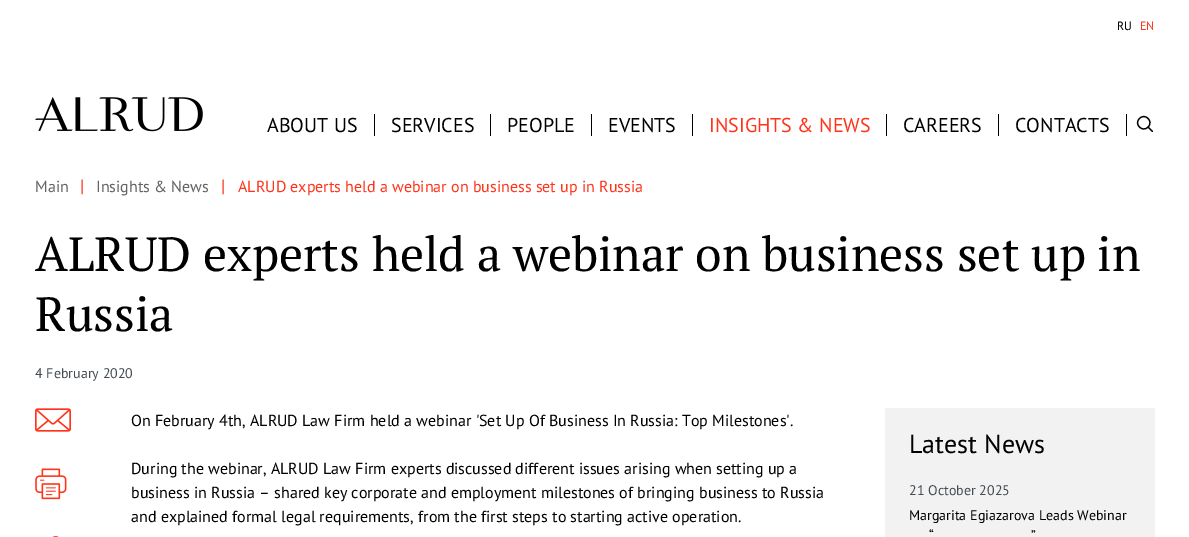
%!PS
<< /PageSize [1189 537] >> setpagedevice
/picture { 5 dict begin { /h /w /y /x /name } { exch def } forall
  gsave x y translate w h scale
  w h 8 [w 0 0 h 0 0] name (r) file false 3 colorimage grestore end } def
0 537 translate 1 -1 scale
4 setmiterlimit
1 setgray
0 0 1189 537 rectfill
/PTSans-Regular [12 0 0 -12 0 0] selectfont
0 setgray
1117 30 moveto (RU) show
1 0.208 0.106 setrgbcolor
1140 30 moveto (EN) show
(img1.rgb) 35 97 168 35 picture
0 setgray
374 114 1 22 rectfill
/PTSans-Regular [20 0 0 -20 0 0] selectfont
267 132 moveto (ABOUT US) show
490 114 1 22 rectfill
391 132 moveto (SERVICES) show
591 114 1 22 rectfill
507 132 moveto (PEOPLE) show
692 114 1 22 rectfill
608 132 moveto (EVENTS) show
886 114 1 22 rectfill
1 0.208 0.106 setrgbcolor
709 132 moveto (INSIGHTS & NEWS) show
0 setgray
998 114 1 22 rectfill
903 132 moveto (CAREERS) show
1126 114 1 22 rectfill
1015 132 moveto (CONTACTS) show
1.2 setlinewidth
1 setlinecap
1 setlinejoin
newpath 1152.5 131.5 moveto 1148 127 lineto 1148 127 moveto 1154 121.5 1145 112.5 1139.5 118.5 curveto 1133.5 124 1142.5 133 1148 127 curveto stroke
/PTSans-Regular [16 0 0 -16 0 0] selectfont
0.388 setgray
35 192 moveto (Main) show
/PTSans-Regular [18 0 0 -18 0 0] selectfont
1 0.208 0.106 setrgbcolor
80 192 moveto (|) show
/PTSans-Regular [16 0 0 -16 0 0] selectfont
0.388 setgray
96 192 moveto (Insights & News) show
/PTSans-Regular [18 0 0 -18 0 0] selectfont
1 0.208 0.106 setrgbcolor
221 192 moveto (|) show
/PTSans-Regular [16 0 0 -16 0 0] selectfont
238 192 moveto (ALRUD experts held a webinar on business set up in Russia) show
/PTSerif-Regular [48 0 0 -48 0 0] selectfont
0 setgray
35 271 moveto (ALRUD experts held a webinar on business set up in) show
35 331 moveto (Russia) show
/PTSans-Regular [14 0 0 -14 0 0] selectfont
0.263 0.302 0.322 setrgbcolor
35 378 moveto (4 February 2020) show
(img2.rgb) 35 408 36 24 picture
(img3.rgb) 35 468 32 32 picture
(img4.rgb) 52 536 7 1 picture
/PTSans-Regular [16 0 0 -16 0 0] selectfont
0 setgray
131 426 moveto (On February 4th, ALRUD Law Firm held a webinar 'Set Up Of Business In Russia: Top Milestones'.) show
131 474 moveto (During the webinar, ALRUD Law Firm experts discussed different issues arising when setting up a) show
131 498 moveto (business in Russia – shared key corporate and employment milestones of bringing business to Russia) show
131 522 moveto (and explained formal legal requirements, from the first steps to starting active operation.) show
0.949 setgray
885 408 270 129 rectfill
/PTSans-Regular [26 0 0 -26 0 0] selectfont
0 setgray
909 453 moveto (Latest News) show
/PTSans-Regular [14 0 0 -14 0 0] selectfont
0.263 0.302 0.322 setrgbcolor
909 495 moveto (21 October 2025) show
0 setgray
909 520 moveto (Margarita Egiazarova Leads Webinar) show
929 540 moveto (“) show
1031 540 moveto (”) show
showpage
